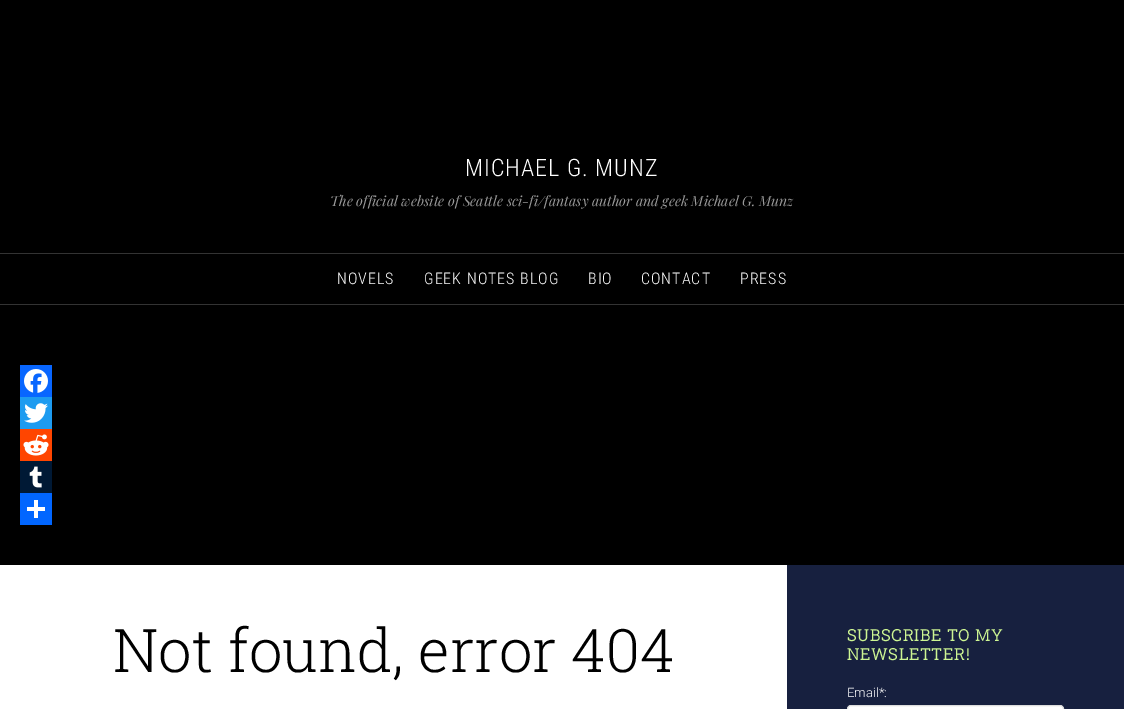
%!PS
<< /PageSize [1124 709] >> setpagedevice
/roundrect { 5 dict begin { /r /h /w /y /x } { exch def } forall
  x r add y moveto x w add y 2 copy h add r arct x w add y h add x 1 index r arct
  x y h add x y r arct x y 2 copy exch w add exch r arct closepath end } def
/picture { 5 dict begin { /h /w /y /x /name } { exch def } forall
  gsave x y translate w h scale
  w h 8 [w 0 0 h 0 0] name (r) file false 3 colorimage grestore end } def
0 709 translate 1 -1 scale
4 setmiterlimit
0.09 0.125 0.247 setrgbcolor
0 0 1124 709 rectfill
0 setgray
0 0 1124 565 rectfill
/RobotoCondensed-Light [24 0 0 -24 0 0] selectfont
1 setgray
465 176 moveto 1 0 (MICHAEL G. MUNZ) ashow
/PlayfairDisplay-Italic [14 0 0 -14 0 0] selectfont
0.6 setgray
330 206 moveto (The official website of Seattle sci-fi/fantasy author and geek Michael G. Munz) show
0.2 setgray
0 253 1124 1 rectfill
0 304 1124 1 rectfill
/RobotoCondensed-Light [16 0 0 -16 0 0] selectfont
1 setgray
337 284 moveto 1 0 (NOVELS) ashow
424 284 moveto 1 0 (GEEK NOTES BLOG) ashow
588 284 moveto 1 0 (BIO) ashow
641 284 moveto 1 0 (CONTACT) ashow
740 284 moveto 1 0 (PRESS) ashow
0.031 0.4 1 setrgbcolor
20 365 32 32 rectfill
(img1.rgb) 24 369 24 24 picture
0.114 0.608 0.941 setrgbcolor
20 397 32 32 rectfill
(img2.rgb) 24 403 24 20 picture
1 0.271 0 setrgbcolor
20 429 32 32 rectfill
(img3.rgb) 23 434 26 22 picture
0 0.098 0.208 setrgbcolor
20 461 32 32 rectfill
(img4.rgb) 29 466 13 22 picture
0.004 0.4 1 setrgbcolor
20 493 32 32 rectfill
1 setgray
34 500 4 18 rectfill
27 507 18 4 rectfill
0 565 787 144 rectfill
/RobotoSlab-Light [60 0 0 -60 0 0] selectfont
0 setgray
113 672 moveto (Not found, error 404) show
/RobotoSlab-Bold [16 0 0 -16 0 0] selectfont
0.804 0.961 0.576 setrgbcolor
847 641 moveto 1 0 (SUBSCRIBE TO MY) ashow
847 660 moveto 1 0 (NEWSLETTER!) ashow
/Roboto-Light [13 0 0 -13 0 0] selectfont
1 setgray
847 697 moveto (Email*:) show
847.5 705.5 216 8 3.5 roundrect gsave fill grestore
0.867 setgray
stroke
showpage
